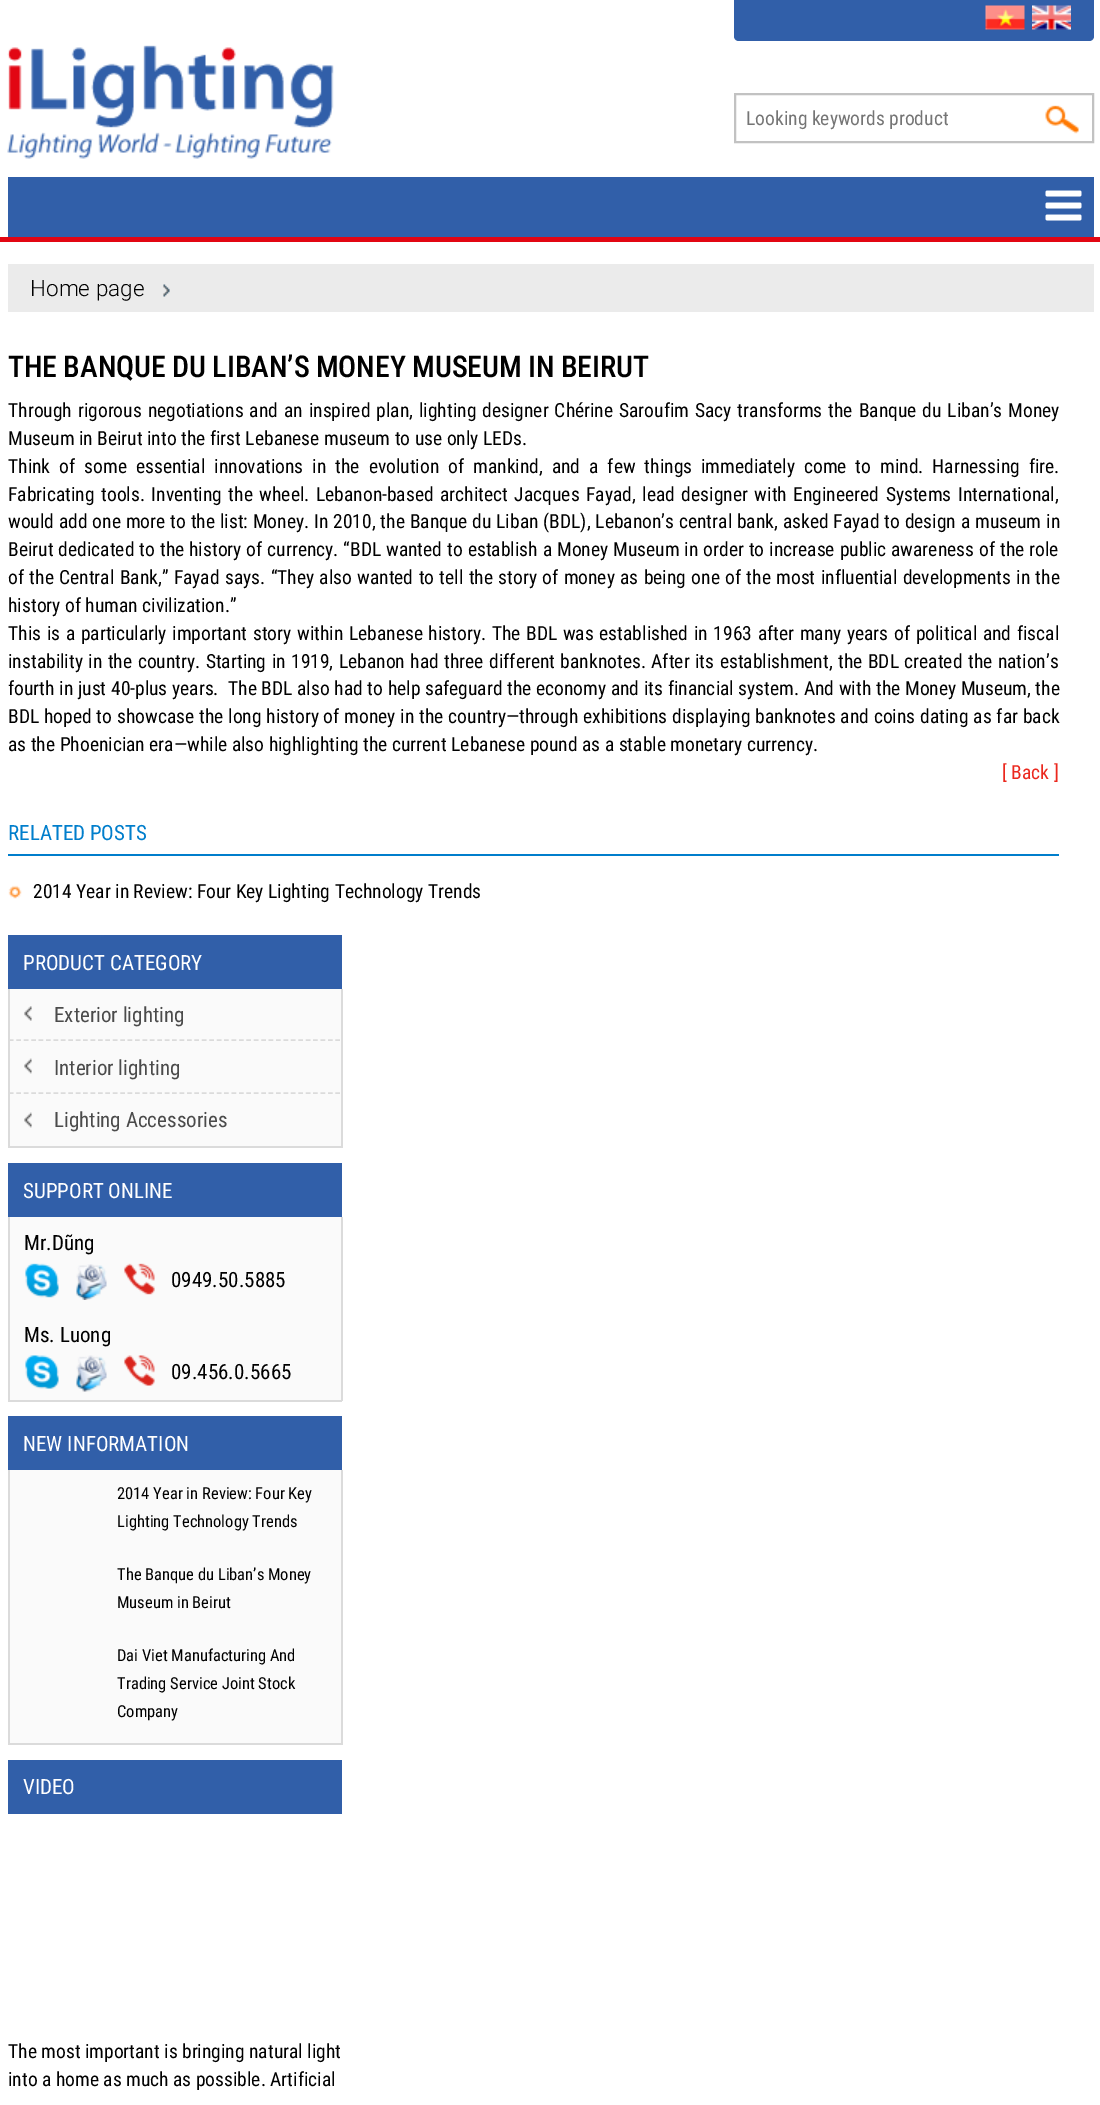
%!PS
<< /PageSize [1100 2105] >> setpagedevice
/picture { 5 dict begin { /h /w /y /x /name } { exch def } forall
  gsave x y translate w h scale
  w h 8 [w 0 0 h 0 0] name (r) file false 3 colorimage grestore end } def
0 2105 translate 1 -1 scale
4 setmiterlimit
1 setgray
0 0 1100 2105 rectfill
(img1.rgb) 7 45 327 114 picture
0.192 0.373 0.663 setrgbcolor
newpath 734 -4 moveto 1094 -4 lineto 1094 36 lineto 1094 39 1092 41 1089 41 curveto 739 41 lineto 736 41 734 39 734 36 curveto closepath fill
(img2.rgb) 985 5 40 25 picture
(img3.rgb) 1032 5 39 25 picture
0.761 setgray
2 setlinewidth
735 94 358 48 rectstroke
/RobotoCondensed-Regular [19.5 0 0 -19.5 0 0] selectfont
0.459 setgray
746 125 moveto (Looking keywords product) show
(img4.rgb) 1045 105 34 29 picture
0.192 0.373 0.663 setrgbcolor
8 177 1086 60 rectfill
(img5.rgb) 1045 190 37 31 picture
0.886 0.024 0.075 setrgbcolor
0 237 1100 5 rectfill
0.922 setgray
8 264 1086 48 rectfill
(img6.rgb) 163 284 7 13 picture
/Roboto-Light [22.5 0 0 -22.5 0 0] selectfont
0 setgray
30 296 moveto (Home page) show
/RobotoCondensed-Medium [30 0 0 -30 0 0] selectfont
8 377 moveto -0.75 0 32 (THE BANQUE DU LIBAN’S MONEY MUSEUM IN BEIRUT) widthshow
/RobotoCondensed-Regular [19.5 0 0 -19.5 0 0] selectfont
8 417 moveto 1.5 0 32 (Through rigorous negotiations and an inspired plan, lighting designer Chérine Saroufim Sacy transforms the Banque du Liban’s Money) widthshow
8 445 moveto (Museum in Beirut into the first Lebanese museum to use only LEDs.) show
8 473 moveto 4.5 0 32 (Think of some essential innovations in the evolution of mankind, and a few things immediately come to mind. Harnessing fire.) widthshow
8 501 moveto 2.1 0 32 (Fabricating tools. Inventing the wheel. Lebanon-based architect Jacques Fayad, lead designer with Engineered Systems International,) widthshow
8 528 moveto 0.4 0 32 (would add one more to the list: Money. In 2010, the Banque du Liban \(BDL\), Lebanon’s central bank, asked Fayad to design a museum in) widthshow
8 556 moveto 0.5 0 32 (Beirut dedicated to the history of currency. “BDL wanted to establish a Money Museum in order to increase public awareness of the role) widthshow
8 584 moveto 0.9 0 32 (of the Central Bank,” Fayad says. “They also wanted to tell the story of money as being one of the most influential developments in the) widthshow
8 612 moveto (history of human civilization.”) show
8 640 moveto 1.2 0 32 (This is a particularly important story within Lebanese history. The BDL was established in 1963 after many years of political and fiscal) widthshow
8 668 moveto 1 0 32 (instability in the country. Starting in 1919, Lebanon had three different banknotes. After its establishment, the BDL created the nation’s) widthshow
8 695 moveto 0.2 0 32 (fourth in just 40-plus years.  The BDL also had to help safeguard the economy and its financial system. And with the Money Museum, the) widthshow
8 723 moveto 0.4 0 32 (BDL hoped to showcase the long history of money in the country—through exhibitions displaying banknotes and coins dating as far back) widthshow
8 751 moveto (as the Phoenician era—while also highlighting the current Lebanese pound as a stable monetary currency.) show
0.922 0.157 0.118 setrgbcolor
1002 779 moveto ([ Back ]) show
0 0.494 0.8 setrgbcolor
8 854 1051 2 rectfill
/RobotoCondensed-Regular [21 0 0 -21 0 0] selectfont
8 840 moveto (RELATED POSTS) show
(img7.rgb) 8 885 14 14 picture
/RobotoCondensed-Regular [19.5 0 0 -19.5 0 0] selectfont
0 setgray
33 898 moveto (2014 Year in Review: Four Key Lighting Technology Trends) show
0.192 0.373 0.663 setrgbcolor
8 935 334 54 rectfill
/RobotoCondensed-Regular [21 0 0 -21 0 0] selectfont
1 setgray
23 970 moveto (PRODUCT CATEGORY) show
0.98 setgray
10 989 331 157 rectfill
0.859 setgray
341 989 2 159 rectfill
8 1146 334 2 rectfill
8 989 2 159 rectfill
(img8.rgb) 24 1006 8 15 picture
1.5 setlinewidth
[4.5 2.92] 0 setdash
newpath 9 1040 moveto 340.5 1040 lineto stroke
0.294 setgray
54 1022 moveto (Exterior lighting) show
(img9.rgb) 24 1058 8 16 picture
0.859 setgray
newpath 9 1093 moveto 340.5 1093 lineto stroke
0.294 setgray
54 1075 moveto (Interior lighting) show
(img9.rgb) 24 1112 8 16 picture
54 1127 moveto (Lighting Accessories) show
0.192 0.373 0.663 setrgbcolor
8 1163 334 54 rectfill
1 setgray
23 1198 moveto (SUPPORT ONLINE) show
0.98 setgray
10 1217 331 183 rectfill
0.859 setgray
341 1217 2 184 rectfill
8 1400 334 2 rectfill
8 1217 2 184 rectfill
0 setgray
24 1250 moveto (Mr.Dũng) show
(img10.rgb) 25 1263 34 35 picture
(img11.rgb) 76 1264 31 36 picture
(img12.rgb) 124 1263 31 32 picture
171 1287 moveto (0949.50.5885) show
24 1342 moveto (Ms. Luong) show
(img13.rgb) 25 1355 34 34 picture
(img14.rgb) 76 1355 31 37 picture
(img15.rgb) 124 1355 31 31 picture
171 1379 moveto (09.456.0.5665) show
0.192 0.373 0.663 setrgbcolor
8 1416 334 54 rectfill
1 setgray
23 1451 moveto (NEW INFORMATION) show
0.98 setgray
10 1470 331 273 rectfill
0.859 setgray
341 1470 2 275 rectfill
8 1743 334 2 rectfill
8 1470 2 275 rectfill
/RobotoCondensed-Regular [16.5 0 0 -16.5 0 0] selectfont
0 setgray
117 1499 moveto (2014 Year in Review: Four Key) show
117 1527 moveto (Lighting Technology Trends) show
117 1580 moveto (The Banque du Liban’s Money) show
117 1608 moveto (Museum in Beirut) show
117 1661 moveto (Dai Viet Manufacturing And) show
117 1689 moveto (Trading Service Joint Stock) show
117 1717 moveto (Company) show
0.192 0.373 0.663 setrgbcolor
8 1760 334 54 rectfill
/RobotoCondensed-Regular [21 0 0 -21 0 0] selectfont
1 setgray
23 1794 moveto (VIDEO) show
/RobotoCondensed-Regular [19.5 0 0 -19.5 0 0] selectfont
0 setgray
8 2058 moveto (The most important is bringing natural light) show
8 2086 moveto (into a home as much as possible. Artificial) show
showpage
